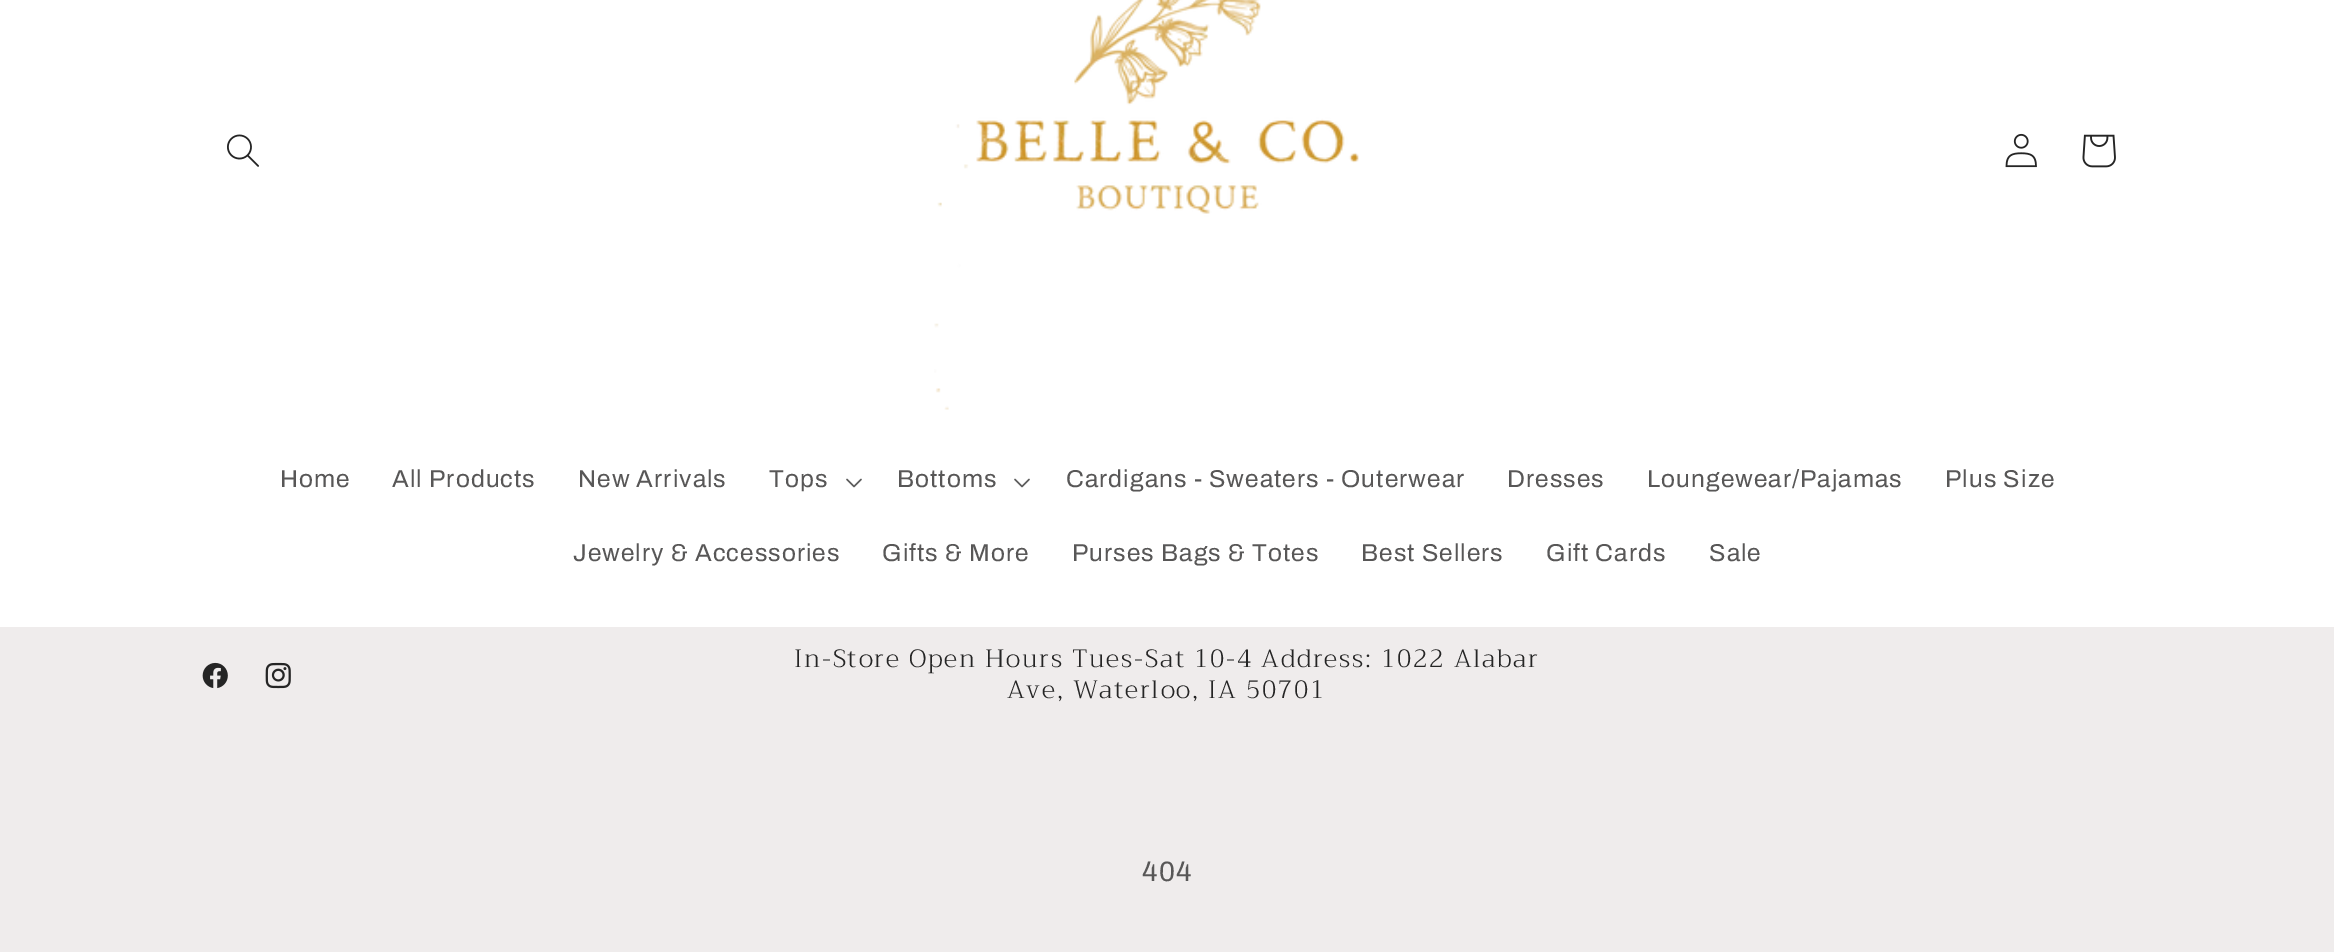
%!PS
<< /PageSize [2334 952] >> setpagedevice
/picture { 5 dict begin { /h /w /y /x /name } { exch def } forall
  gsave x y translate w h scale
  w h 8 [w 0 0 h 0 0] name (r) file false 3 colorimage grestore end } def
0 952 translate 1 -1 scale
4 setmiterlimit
0.937 0.925 0.925 setrgbcolor
0 0 2334 952 rectfill
1 setgray
0 0 2334 627 rectfill
(img1.rgb) 227 134 32 33 picture
(img2.rgb) 934 0 425 410 picture
(img3.rgb) 2005 133 32 35 picture
(img4.rgb) 2082 134 34 34 picture
/Archivo-Regular [24.5 0 0 -24.5 0 0] selectfont
0.345 0.341 0.341 setrgbcolor
280 487 moveto 1.05 0 (Home) ashow
392 487 moveto 1.05 0 (All Products) ashow
578 487 moveto 1.05 0 (New Arrivals) ashow
769 487 moveto 1.05 0 (Tops) ashow
(img5.rgb) 846 478 16 10 picture
897 487 moveto 1.05 0 (Bottoms) ashow
(img5.rgb) 1014 478 16 10 picture
1066 487 moveto 1.05 0 (Cardigans - Sweaters - Outerwear) ashow
1507 487 moveto 1.05 0 (Dresses) ashow
1647 487 moveto 1.05 0 (Loungewear/Pajamas) ashow
1945 487 moveto 1.05 0 (Plus Size) ashow
573 561 moveto 1.05 0 (Jewelry & Accessories) ashow
882 561 moveto 1.05 0 (Gifts & More) ashow
1072 561 moveto 1.05 0 (Purses Bags & Totes) ashow
1361 561 moveto 1.05 0 (Best Sellers) ashow
1546 561 moveto 1.05 0 (Gift Cards) ashow
1709 561 moveto 1.05 0 (Sale) ashow
(img6.rgb) 202 662 26 27 picture
(img7.rgb) 265 662 26 27 picture
/Trirong-Light [25 0 0 -25 0 0] selectfont
0.145 setgray
794 667 moveto 1.75 0 (In-Store Open Hours Tues-Sat 10-4 Address: 1022 Alabar) ashow
1007 698 moveto 1.75 0 (Ave, Waterloo, IA 50701) ashow
/Archivo-Regular [28 0 0 -28 0 0] selectfont
0.345 0.341 0.341 setrgbcolor
1142 881 moveto 1.05 0 (404) ashow
showpage
